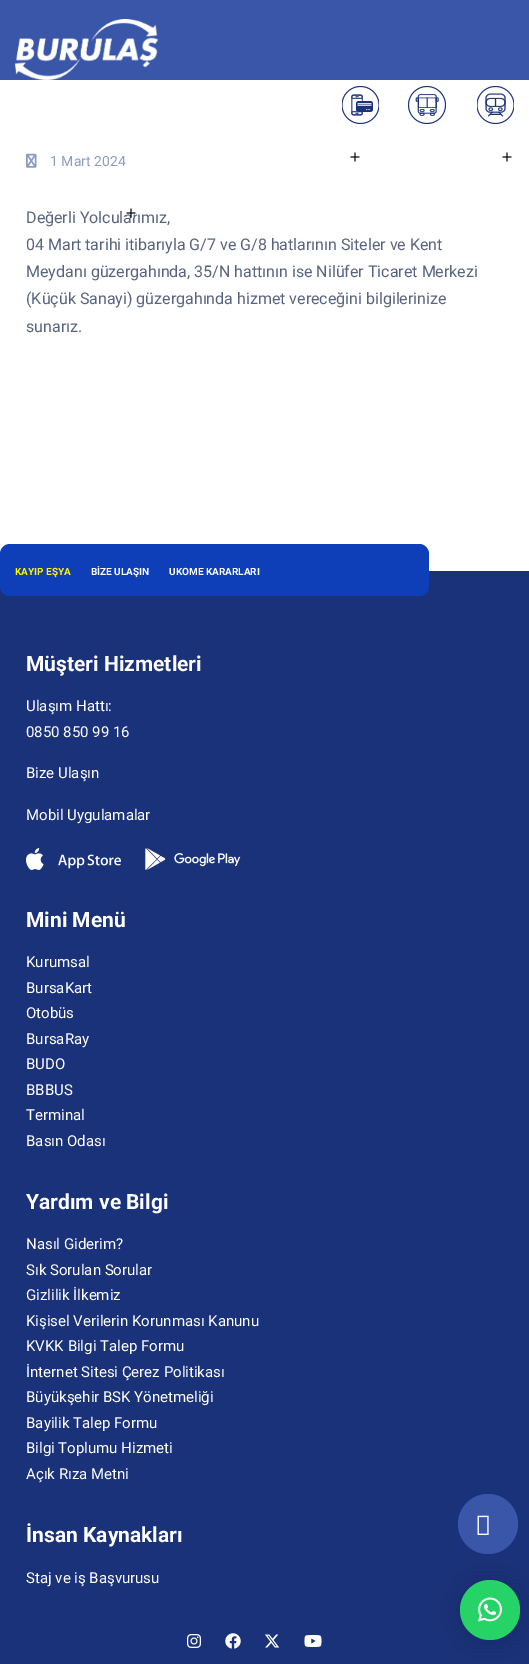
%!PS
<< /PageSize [529 1664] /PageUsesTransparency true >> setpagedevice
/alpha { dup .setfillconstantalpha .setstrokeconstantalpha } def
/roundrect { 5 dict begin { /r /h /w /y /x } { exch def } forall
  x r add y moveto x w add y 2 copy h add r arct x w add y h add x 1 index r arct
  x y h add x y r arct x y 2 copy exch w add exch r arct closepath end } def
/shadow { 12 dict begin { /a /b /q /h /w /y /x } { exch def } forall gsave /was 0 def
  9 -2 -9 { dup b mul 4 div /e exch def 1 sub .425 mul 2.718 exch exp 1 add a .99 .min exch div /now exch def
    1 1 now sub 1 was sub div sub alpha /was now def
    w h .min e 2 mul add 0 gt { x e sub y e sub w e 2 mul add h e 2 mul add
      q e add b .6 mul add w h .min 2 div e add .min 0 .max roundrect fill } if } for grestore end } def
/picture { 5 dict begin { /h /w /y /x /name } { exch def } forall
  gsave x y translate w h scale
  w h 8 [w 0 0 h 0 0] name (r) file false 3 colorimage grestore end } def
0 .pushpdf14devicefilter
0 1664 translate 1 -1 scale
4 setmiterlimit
1 setgray
0 0 529 1664 rectfill
0.227 0.337 0.663 setrgbcolor
0 0 529 80 rectfill
(img1.rgb) 15 19 143 61 picture
(img2.rgb) 350 152 10 10 picture
(img2.rgb) 502 152 10 10 picture
/Roboto-Regular [16 0 0 -16 0 0] selectfont
0.349 0.392 0.502 setrgbcolor
26 223 moveto (Değerli Yolcularımız,) show
(img3.rgb) 126 208 10 10 picture
(img4.rgb) 342 86 37 38 picture
(img5.rgb) 408 86 38 38 picture
(img6.rgb) 477 86 37 38 picture
(img7.rgb) 26 153 11 15 picture
/Roboto-Regular [14 0 0 -14 0 0] selectfont
0.545 0.612 0.757 setrgbcolor
50 166 moveto (1 Mart 2024) show
/Roboto-Regular [16 0 0 -16 0 0] selectfont
0.349 0.392 0.502 setrgbcolor
26 250 moveto (04 Mart tarihi itibarıyla G/7 ve G/8 hatlarının Siteler ve Kent) show
26 277 moveto (Meydanı güzergahında, 35/N hattının ise Nilüfer Ticaret Merkezi) show
26 304 moveto (\(Küçük Sanayi\) güzergahında hizmet vereceğini bilgilerinize) show
26 332 moveto (sunarız.) show
0.102 0.196 0.478 setrgbcolor
0 571 529 1093 rectfill
0.059 0.243 0.725 setrgbcolor
0 544 429 52 10 roundrect fill
/Roboto-Bold [10 0 0 -10 0 0] selectfont
1 0.953 0 setrgbcolor
15 575 moveto (KAYIP EŞYA) show
1 setgray
91 575 moveto (BİZE ULAŞIN) show
169 575 moveto (UKOME KARARLARI) show
/Roboto-Bold [21 0 0 -21 0 0] selectfont
26 671 moveto (Müşteri Hizmetleri) show
/Roboto-Regular [15 0 0 -15 0 0] selectfont
26 711 moveto (Ulaşım Hattı:) show
26 737 moveto (0850 850 99 16) show
26 778 moveto (Bize Ulaşın) show
26 820 moveto (Mobil Uygulamalar) show
(img8.rgb) 26 848 95 22 picture
(img9.rgb) 145 848 96 22 picture
/Roboto-Bold [21 0 0 -21 0 0] selectfont
26 927 moveto (Mini Menü) show
/Roboto-Regular [15 0 0 -15 0 0] selectfont
26 967 moveto (Kurumsal) show
26 993 moveto (BursaKart) show
26 1018 moveto (Otobüs) show
26 1044 moveto (BursaRay) show
26 1069 moveto (BUDO) show
26 1095 moveto (BBBUS) show
26 1120 moveto (Terminal) show
26 1146 moveto (Basın Odası) show
/Roboto-Bold [21 0 0 -21 0 0] selectfont
26 1209 moveto (Yardım ve Bilgi) show
/Roboto-Regular [15 0 0 -15 0 0] selectfont
26 1249 moveto (Nasıl Giderim?) show
26 1275 moveto (Sık Sorulan Sorular) show
26 1300 moveto (Gizlilik İlkemiz) show
26 1326 moveto (Kişisel Verilerin Korunması Kanunu) show
26 1351 moveto (KVKK Bilgi Talep Formu) show
26 1377 moveto (İnternet Sitesi Çerez Politikası) show
26 1402 moveto (Büyükşehir BSK Yönetmeliği) show
26 1428 moveto (Bayilik Talep Formu) show
26 1453 moveto (Bilgi Toplumu Hizmeti) show
26 1479 moveto (Açık Rıza Metni) show
/Roboto-Bold [21 0 0 -21 0 0] selectfont
26 1542 moveto (İnsan Kaynakları) show
/Roboto-Regular [15 0 0 -15 0 0] selectfont
26 1583 moveto (Staj ve iş Başvurusu) show
(img10.rgb) 187 1634 14 14 picture
(img11.rgb) 225 1633 16 16 picture
(img12.rgb) 265 1634 15 14 picture
(img13.rgb) 304 1635 18 12 picture
0.227 0.337 0.663 setrgbcolor
newpath 488 1524 30 0 360 arc closepath fill
(img14.rgb) 477 1515 12 20 picture
0 setgray
460 1582 60 60 30 16 0.16 shadow
0.145 0.827 0.4 setrgbcolor
newpath 490 1610 30 0 360 arc closepath fill
(img15.rgb) 478 1597 24 25 picture
.poppdf14devicefilter showpage
